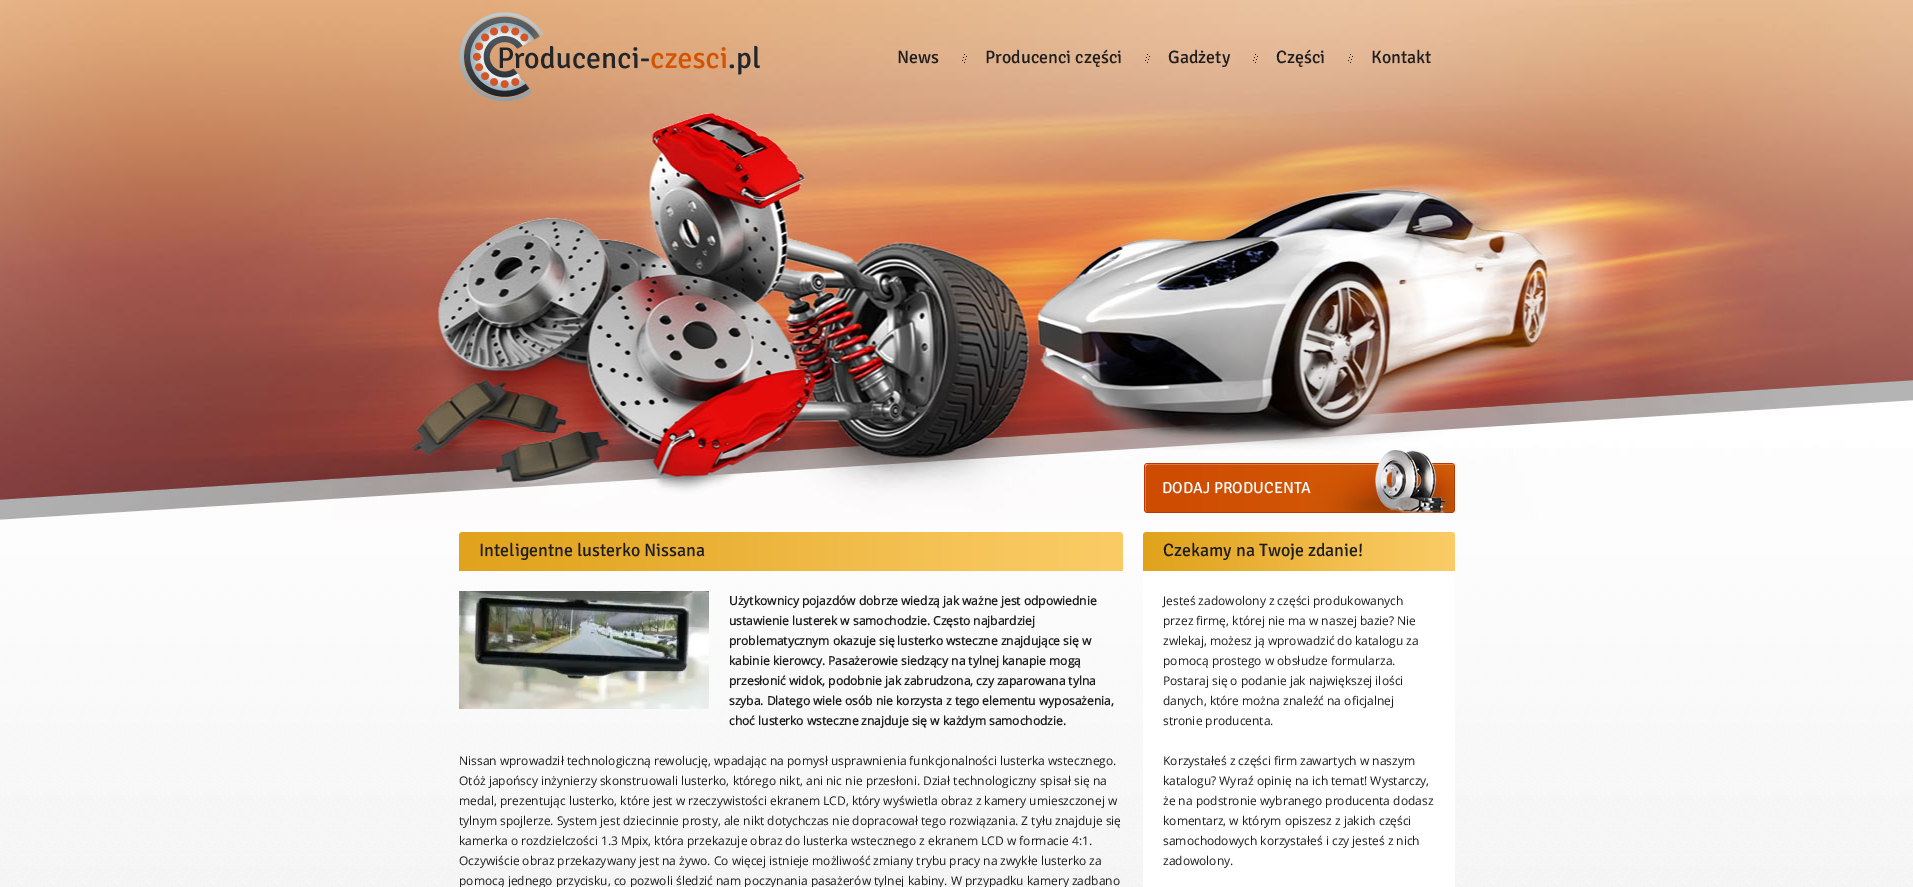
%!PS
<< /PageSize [1913 887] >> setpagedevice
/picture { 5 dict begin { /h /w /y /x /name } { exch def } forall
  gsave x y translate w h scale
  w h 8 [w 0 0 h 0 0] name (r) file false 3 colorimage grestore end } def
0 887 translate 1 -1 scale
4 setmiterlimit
1 setgray
0 0 1913 887 rectfill
(img1.rgb) 0 520 1913 367 picture
(img2.rgb) 0 0 1913 520 picture
(img3.rgb) 459 12 301 90 picture
/Signika-Regular [18 0 0 -18 0 0] selectfont
0.118 0.114 0.114 setrgbcolor
897 63 moveto (News) show
(img4.rgb) 962 54 5 9 picture
985 63 moveto (Producenci części) show
(img5.rgb) 1145 54 5 9 picture
1168 63 moveto (Gadżety) show
(img6.rgb) 1253 54 5 9 picture
1276 63 moveto (Części) show
(img7.rgb) 1348 54 5 9 picture
1371 63 moveto (Kontakt) show
(img8.rgb) 1144 450 311 63 picture
/Signika-Regular [16 0 0 -16 0 0] selectfont
1 setgray
1162 493 moveto (DODAJ PRODUCENTA) show
(img9.rgb) 459 532 664 39 picture
/Signika-Regular [18 0 0 -18 0 0] selectfont
0.118 0.114 0.114 setrgbcolor
479 556 moveto (Inteligentne lusterko Nissana) show
(img10.rgb) 459 591 250 118 picture
/OpenSans-Bold [12 0 0 -12 0 0] selectfont
729 605 moveto (Użytkownicy pojazdów dobrze wiedzą jak ważne jest odpowiednie) show
729 625 moveto (ustawienie lusterek w samochodzie. Często najbardziej) show
729 645 moveto (problematycznym okazuje się lusterko wsteczne znajdujące się w) show
729 665 moveto (kabinie kierowcy. Pasażerowie siedzący na tylnej kanapie mogą) show
729 685 moveto (przesłonić widok, podobnie jak zabrudzona, czy zaparowana tylna) show
729 705 moveto (szyba. Dlatego wiele osób nie korzysta z tego elementu wyposażenia,) show
729 725 moveto (choć lusterko wsteczne znajduje się w każdym samochodzie.) show
/OpenSans-Regular [12 0 0 -12 0 0] selectfont
459 765 moveto (Nissan wprowadził technologiczną rewolucję, wpadając na pomysł usprawnienia funkcjonalności lusterka wstecznego.) show
459 785 moveto (Otóż japońscy inżynierzy skonstruowali lusterko, którego nikt, ani nic nie przesłoni. Dział technologiczny spisał się na) show
459 805 moveto (medal, prezentując lusterko, które jest w rzeczywistości ekranem LCD, który wyświetla obraz z kamery umieszczonej w) show
459 825 moveto (tylnym spojlerze. System jest dziecinnie prosty, ale nikt dotychczas nie dopracował tego rozwiązania. Z tyłu znajduje się) show
459 845 moveto (kamerka o rozdzielczości 1.3 Mpix, która przekazuje obraz do lusterka wstecznego z ekranem LCD w formacie 4:1.) show
459 865 moveto (Oczywiście obraz przekazywany jest na żywo. Co więcej istnieje możliwość zmiany trybu pracy na zwykłe lusterko za) show
459 885 moveto (pomocą jednego przycisku, co pozwoli śledzić nam poczynania pasażerów tylnej kabiny. W przypadku kamery zadbano) show
1 setgray
1143 571 312 316 rectfill
(img11.rgb) 1143 532 312 39 picture
/Signika-Regular [18 0 0 -18 0 0] selectfont
0.118 0.114 0.114 setrgbcolor
1163 556 moveto (Czekamy na Twoje zdanie!) show
/OpenSans-Regular [12 0 0 -12 0 0] selectfont
1163 605 moveto (Jesteś zadowolony z części produkowanych) show
1163 625 moveto (przez firmę, której nie ma w naszej bazie? Nie) show
1163 645 moveto (zwlekaj, możesz ją wprowadzić do katalogu za) show
1163 665 moveto (pomocą prostego w obsłudze formularza.) show
1163 685 moveto (Postaraj się o podanie jak największej ilości) show
1163 705 moveto (danych, które można znaleźć na oficjalnej) show
1163 725 moveto (stronie producenta.) show
1163 765 moveto (Korzystałeś z części firm zawartych w naszym) show
1163 785 moveto (katalogu? Wyraź opinię na ich temat! Wystarczy,) show
1163 805 moveto (że na podstronie wybranego producenta dodasz) show
1163 825 moveto (komentarz, w którym opiszesz z jakich części) show
1163 845 moveto (samochodowych korzystałeś i czy jesteś z nich) show
1163 865 moveto (zadowolony.) show
showpage
